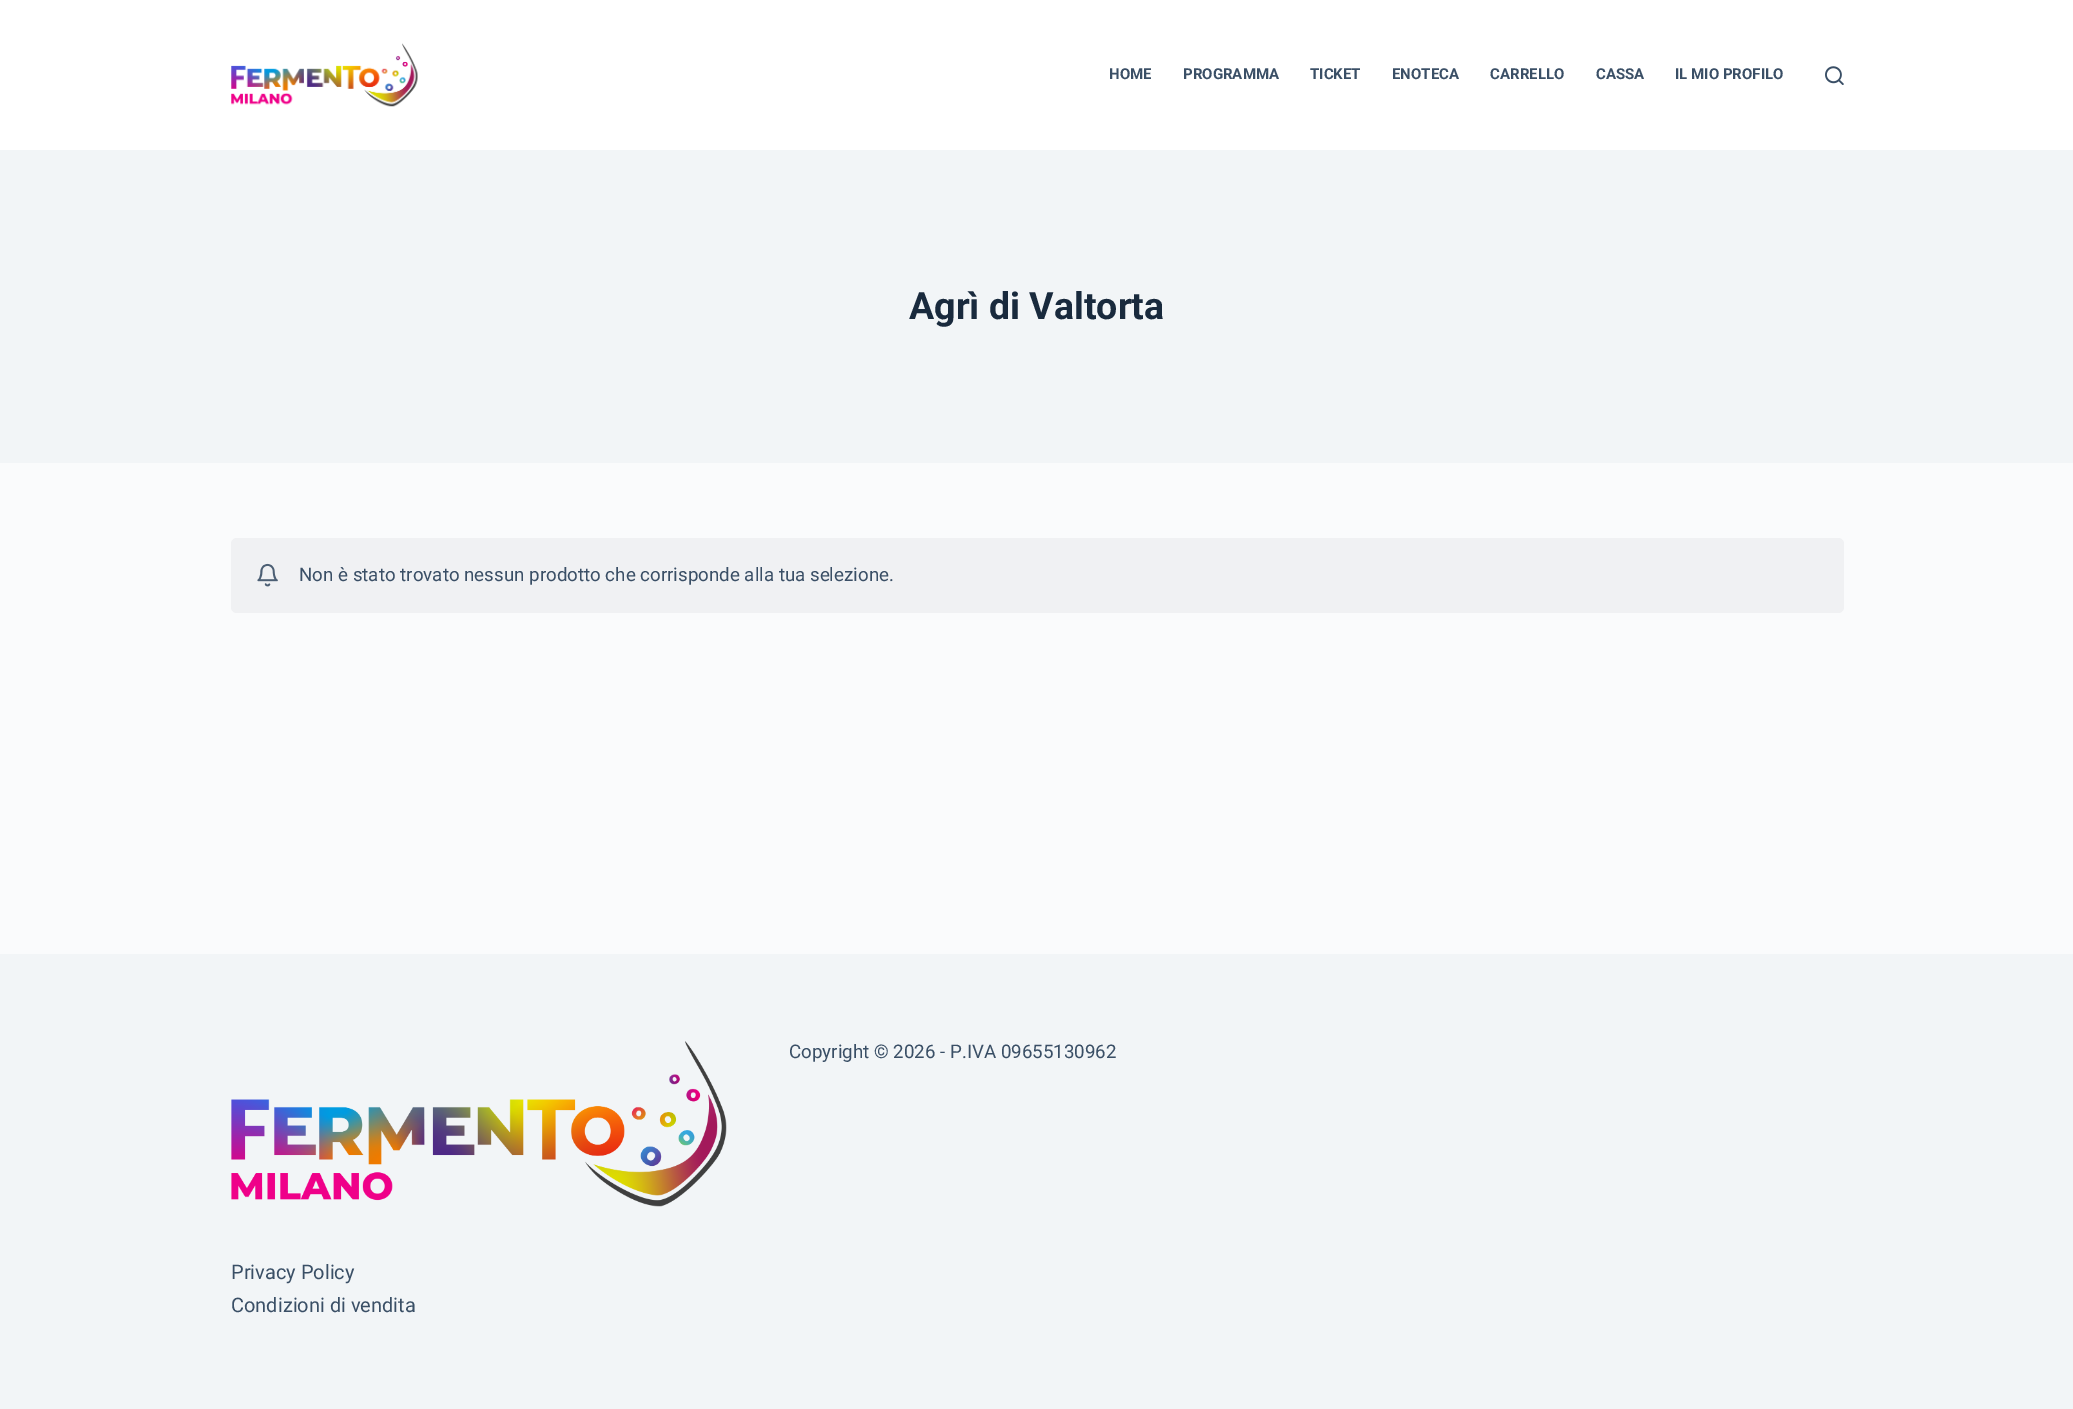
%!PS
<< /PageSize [2073 1409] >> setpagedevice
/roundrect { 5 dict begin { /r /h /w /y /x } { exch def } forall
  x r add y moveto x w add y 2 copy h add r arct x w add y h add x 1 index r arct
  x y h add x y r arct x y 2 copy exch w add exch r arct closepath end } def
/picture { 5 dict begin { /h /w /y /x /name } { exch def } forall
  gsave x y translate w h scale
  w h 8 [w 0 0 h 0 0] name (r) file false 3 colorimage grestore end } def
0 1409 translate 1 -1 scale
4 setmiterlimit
0.98 0.984 0.988 setrgbcolor
0 0 2073 1409 rectfill
1 setgray
0 0 2073 150 rectfill
(img1.rgb) 231 43 187 64 picture
/Roboto-Bold [15 0 0 -15 0 0] selectfont
0.227 0.31 0.4 setrgbcolor
1109 79 moveto (HOME) show
1183 79 moveto (PROGRAMMA) show
1310 79 moveto (TICKET) show
1392 79 moveto (ENOTECA) show
1490 79 moveto (CARRELLO) show
1596 79 moveto (CASSA) show
1675 79 moveto (IL MIO PROFILO) show
(img2.rgb) 1825 66 19 19 picture
0.949 0.961 0.969 setrgbcolor
0 150 2073 313 rectfill
/Roboto-Bold [37.5 0 0 -37.5 0 0] selectfont
0.098 0.165 0.239 setrgbcolor
909 319 moveto (Agrì di Valtorta) show
0.941 0.945 0.953 setrgbcolor
231 538 1613 75 6 roundrect fill
(img3.rgb) 257 563 21 24 picture
/Roboto-Regular [18.75 0 0 -18.75 0 0] selectfont
0.227 0.31 0.4 setrgbcolor
299 581 moveto (Non è stato trovato nessun prodotto che corrisponde alla tua selezione.) show
0.949 0.961 0.969 setrgbcolor
0 954 2073 455 rectfill
0.227 0.31 0.4 setrgbcolor
789 1058 moveto (Copyright © 2026 - P.IVA 09655130962) show
(img4.rgb) 231 1041 496 166 picture
/Roboto-Regular [20 0 0 -20 0 0] selectfont
231 1279 moveto (Privacy Policy) show
231 1312 moveto (Condizioni di vendita) show
showpage
